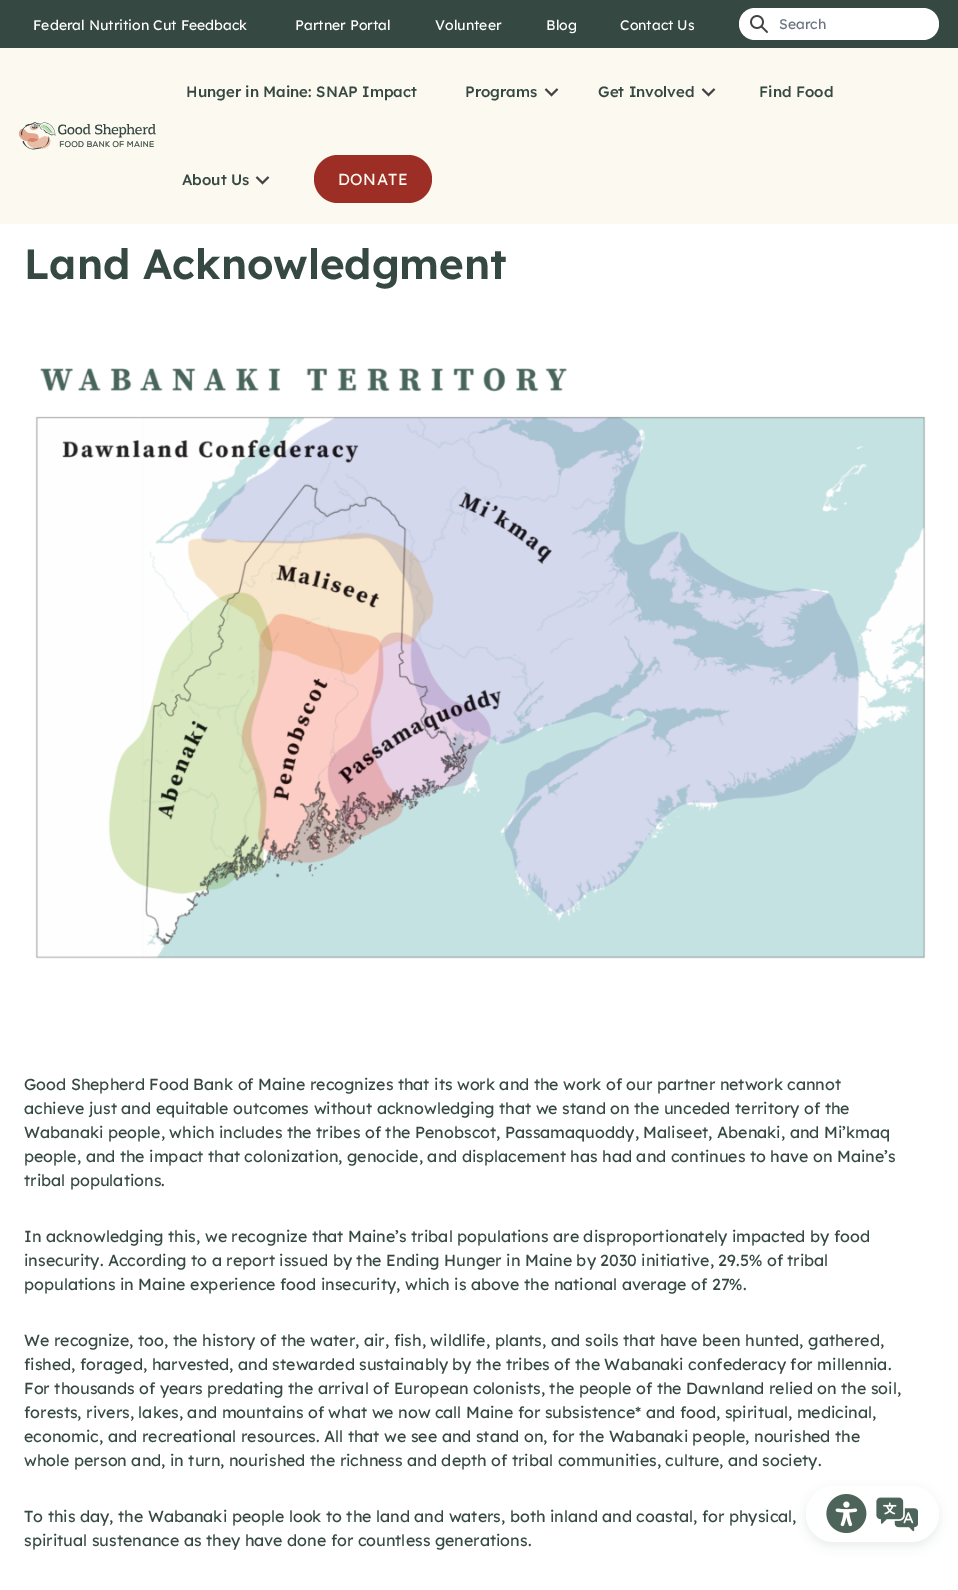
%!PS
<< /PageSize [958 1590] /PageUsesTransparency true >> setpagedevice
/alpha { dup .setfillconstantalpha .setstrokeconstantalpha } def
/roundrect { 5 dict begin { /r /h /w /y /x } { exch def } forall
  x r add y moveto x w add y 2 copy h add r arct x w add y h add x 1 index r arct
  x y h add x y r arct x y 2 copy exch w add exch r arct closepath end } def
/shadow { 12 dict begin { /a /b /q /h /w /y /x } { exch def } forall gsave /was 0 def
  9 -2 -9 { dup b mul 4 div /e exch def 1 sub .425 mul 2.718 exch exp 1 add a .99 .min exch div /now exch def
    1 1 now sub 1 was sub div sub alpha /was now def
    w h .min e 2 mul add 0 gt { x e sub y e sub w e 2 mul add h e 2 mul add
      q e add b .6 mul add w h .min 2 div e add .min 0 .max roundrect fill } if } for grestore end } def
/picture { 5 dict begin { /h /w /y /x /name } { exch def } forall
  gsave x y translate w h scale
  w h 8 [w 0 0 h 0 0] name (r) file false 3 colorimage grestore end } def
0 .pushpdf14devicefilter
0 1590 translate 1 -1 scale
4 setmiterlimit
1 setgray
0 0 958 1590 rectfill
0.208 0.282 0.255 setrgbcolor
0 0 958 48 rectfill
/Lexend-Regular [14 0 0 -14 0 0] selectfont
1 setgray
33 30 moveto (Federal Nutrition Cut Feedback) show
295 30 moveto (Partner Portal) show
435 30 moveto (Volunteer) show
546 30 moveto (Blog) show
620 30 moveto (Contact Us) show
739 8 200 32 16 roundrect fill
(img1.rgb) 750 15 18 18 picture
0.42 0.447 0.502 setrgbcolor
779 29 moveto (Search) show
0.984 0.976 0.941 setrgbcolor
0 48 958 176 rectfill
(img2.rgb) 19 122 137 28 picture
/Lexend-Medium [15 0 0 -15 0 0] selectfont
0.208 0.282 0.255 setrgbcolor
186 97 moveto (Hunger in Maine: SNAP Impact) show
465 97 moveto (Programs) show
0.267 0.263 0.263 setrgbcolor
2 setlinewidth
newpath 545.5 89 moveto 551.5 95 lineto 557.5 89 lineto stroke
0.208 0.282 0.255 setrgbcolor
598 97 moveto (Get Involved) show
0.267 0.263 0.263 setrgbcolor
newpath 702.5 89 moveto 708.5 95 lineto 714.5 89 lineto stroke
0.208 0.282 0.255 setrgbcolor
759 97 moveto (Find Food) show
182 185 moveto (About Us) show
0.267 0.263 0.263 setrgbcolor
newpath 256.5 177 moveto 262.5 183 lineto 268.5 177 lineto stroke
0.616 0.18 0.149 setrgbcolor
314 155 118 48 24 roundrect fill
/Lexend-Regular [16 0 0 -16 0 0] selectfont
0.984 0.976 0.941 setrgbcolor
338 185 moveto 0.5 0 (DONATE) ashow
0.208 0.282 0.255 setrgbcolor
806 1490 133 56 28 5 0.1 shadow
1 setgray
806 1486 133 56 28 roundrect fill
(img3.rgb) 826 1494 41 39 picture
(img4.rgb) 876 1497 42 35 picture
/Lexend-SemiBold [42 0 0 -42 0 0] selectfont
0.208 0.282 0.255 setrgbcolor
24 279 moveto (Land Acknowledgment) show
(img5.rgb) 35 367 891 592 picture
/Lexend-Regular [16 0 0 -16 0 0] selectfont
24 1090 moveto (Good Shepherd Food Bank of Maine recognizes that its work and the work of our partner network cannot) show
24 1114 moveto (achieve just and equitable outcomes without acknowledging that we stand on the unceded territory of the) show
24 1138 moveto (Wabanaki people, which includes the tribes of the Penobscot, Passamaquoddy, Maliseet, Abenaki, and Mi’kmaq) show
24 1162 moveto (people, and the impact that colonization, genocide, and displacement has had and continues to have on Maine’s) show
24 1186 moveto (tribal populations.) show
24 1242 moveto (In acknowledging this, we recognize that Maine’s tribal populations are disproportionately impacted by food) show
24 1266 moveto (insecurity. According to a report issued by the Ending Hunger in Maine by 2030 initiative, 29.5% of tribal) show
24 1290 moveto (populations in Maine experience food insecurity, which is above the national average of 27%.) show
24 1346 moveto (We recognize, too, the history of the water, air, fish, wildlife, plants, and soils that have been hunted, gathered,) show
24 1370 moveto (fished, foraged, harvested, and stewarded sustainably by the tribes of the Wabanaki confederacy for millennia.) show
24 1394 moveto (For thousands of years predating the arrival of European colonists, the people of the Dawnland relied on the soil,) show
24 1418 moveto (forests, rivers, lakes, and mountains of what we now call Maine for subsistence* and food, spiritual, medicinal,) show
24 1442 moveto (economic, and recreational resources. All that we see and stand on, for the Wabanaki people, nourished the) show
24 1466 moveto (whole person and, in turn, nourished the richness and depth of tribal communities, culture, and society.) show
24 1522 moveto (To this day, the Wabanaki people look to the land and waters, both inland and coastal, for physical,) show
24 1546 moveto (spiritual sustenance as they have done for countless generations.) show
.poppdf14devicefilter showpage
